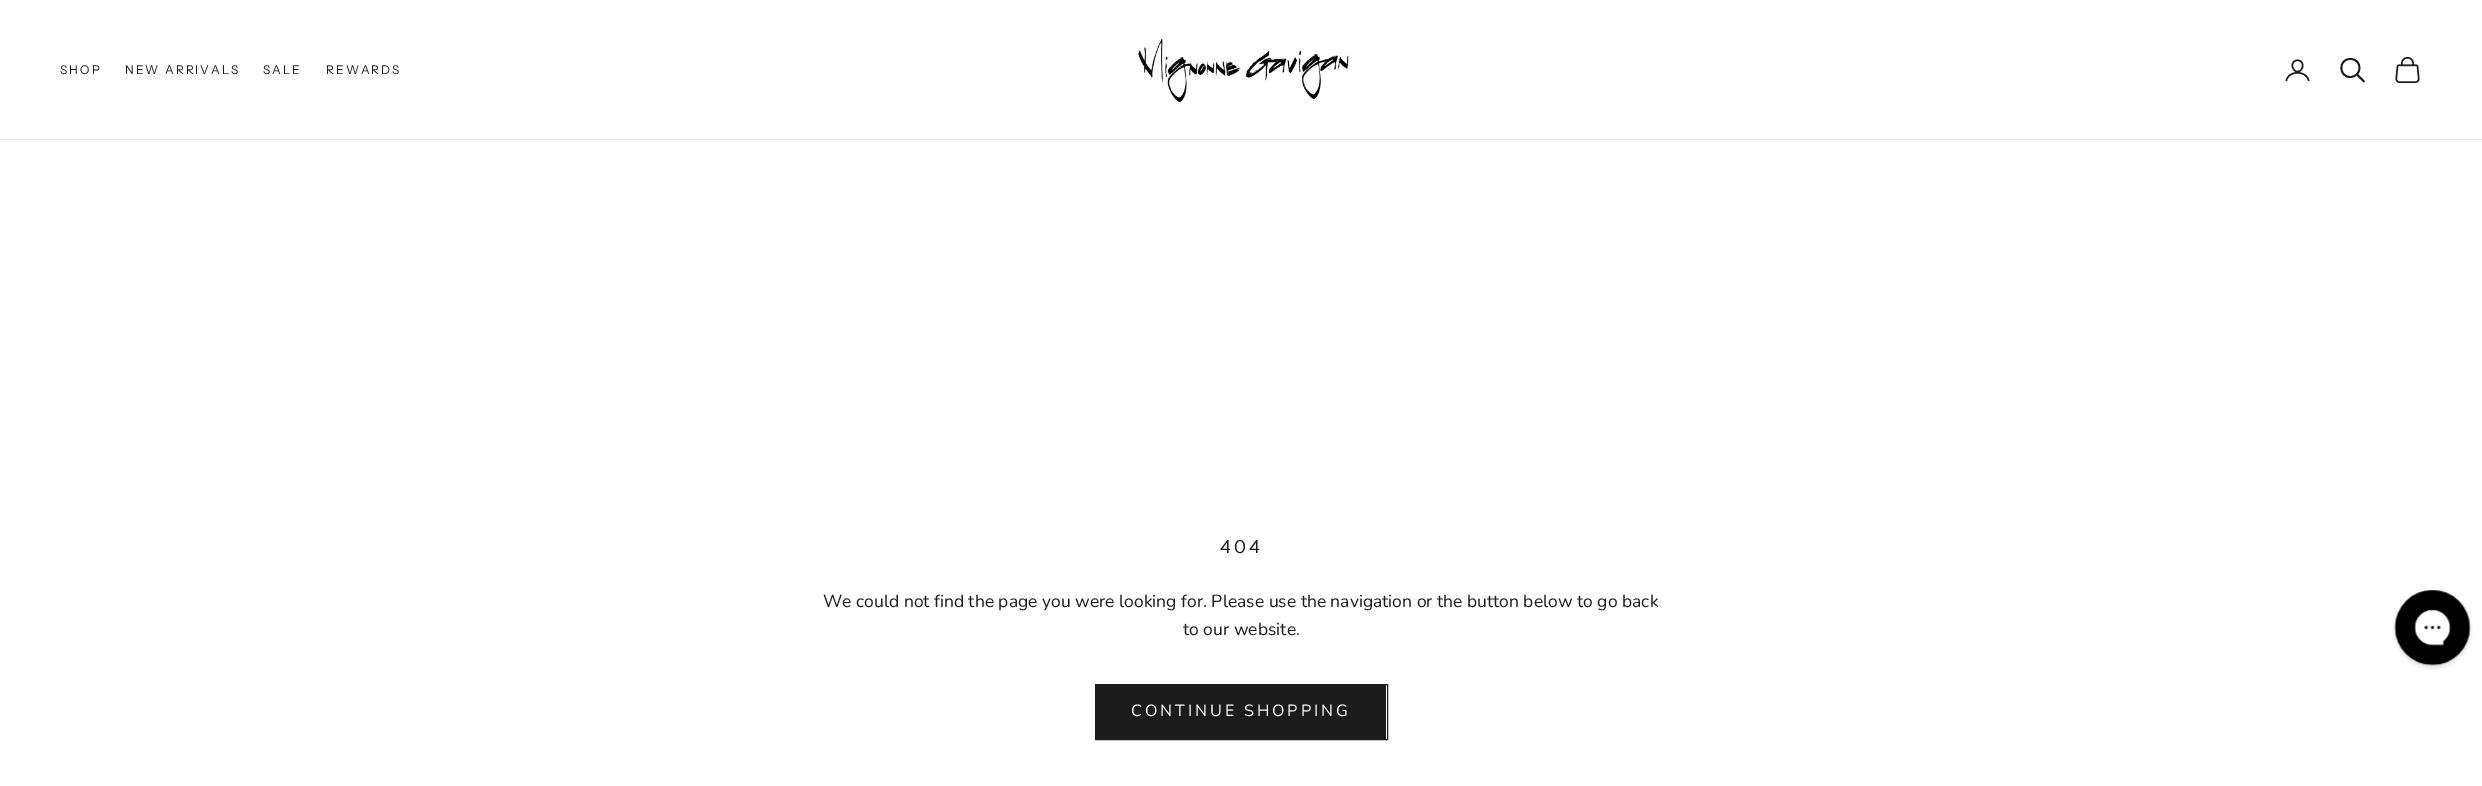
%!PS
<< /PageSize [2482 786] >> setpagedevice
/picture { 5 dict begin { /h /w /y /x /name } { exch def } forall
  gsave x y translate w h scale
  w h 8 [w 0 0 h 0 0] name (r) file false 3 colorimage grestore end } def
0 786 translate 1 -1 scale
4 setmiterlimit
1 setgray
0 0 2482 786 rectfill
0.867 setgray
0 139 2482 1 rectfill
/InstrumentSans-Regular [12 0 0 -12 0 0] selectfont
0.11 setgray
60 74 moveto 2 0 (SHOP) ashow
125 74 moveto 2 0 (NEW ARRIVALS) ashow
263 74 moveto 2 0 (SALE) ashow
326 74 moveto 2 0 (REWARDS) ashow
(img1.rgb) 1138 38 211 65 picture
(img2.rgb) 2285 59 25 22 picture
1.8 setlinewidth
newpath 2350.5 59 moveto 2338 58.5 2338.5 77.5 2350.5 77 curveto 2362.5 76.5 2362.5 59 2350.5 59 curveto closepath stroke
1 setlinecap
newpath 2357.5 75 moveto 2364 81.5 lineto stroke
(img3.rgb) 2395 56 25 28 picture
/InstrumentSans-Regular [18 0 0 -18 0 0] selectfont
1220 553 moveto 3 0 (404) ashow
/Nunito-ExtraLight [17.5 0 0 -17.5 0 0] selectfont
823 607 moveto (We could not find the page you were looking for. Please use the navigation or the button below to go back) show
1183 635 moveto (to our website.) show
1096 685 290 54 rectfill
1 setlinewidth
0 setlinecap
1095.5 684.5 292 55 rectstroke
/Nunito-ExtraLight [16.25 0 0 -16.25 0 0] selectfont
1 setgray
1131 716 moveto 2.9 0 (CONTINUE SHOPPING) ashow
(img4.rgb) 2392 589 81 81 picture
showpage
